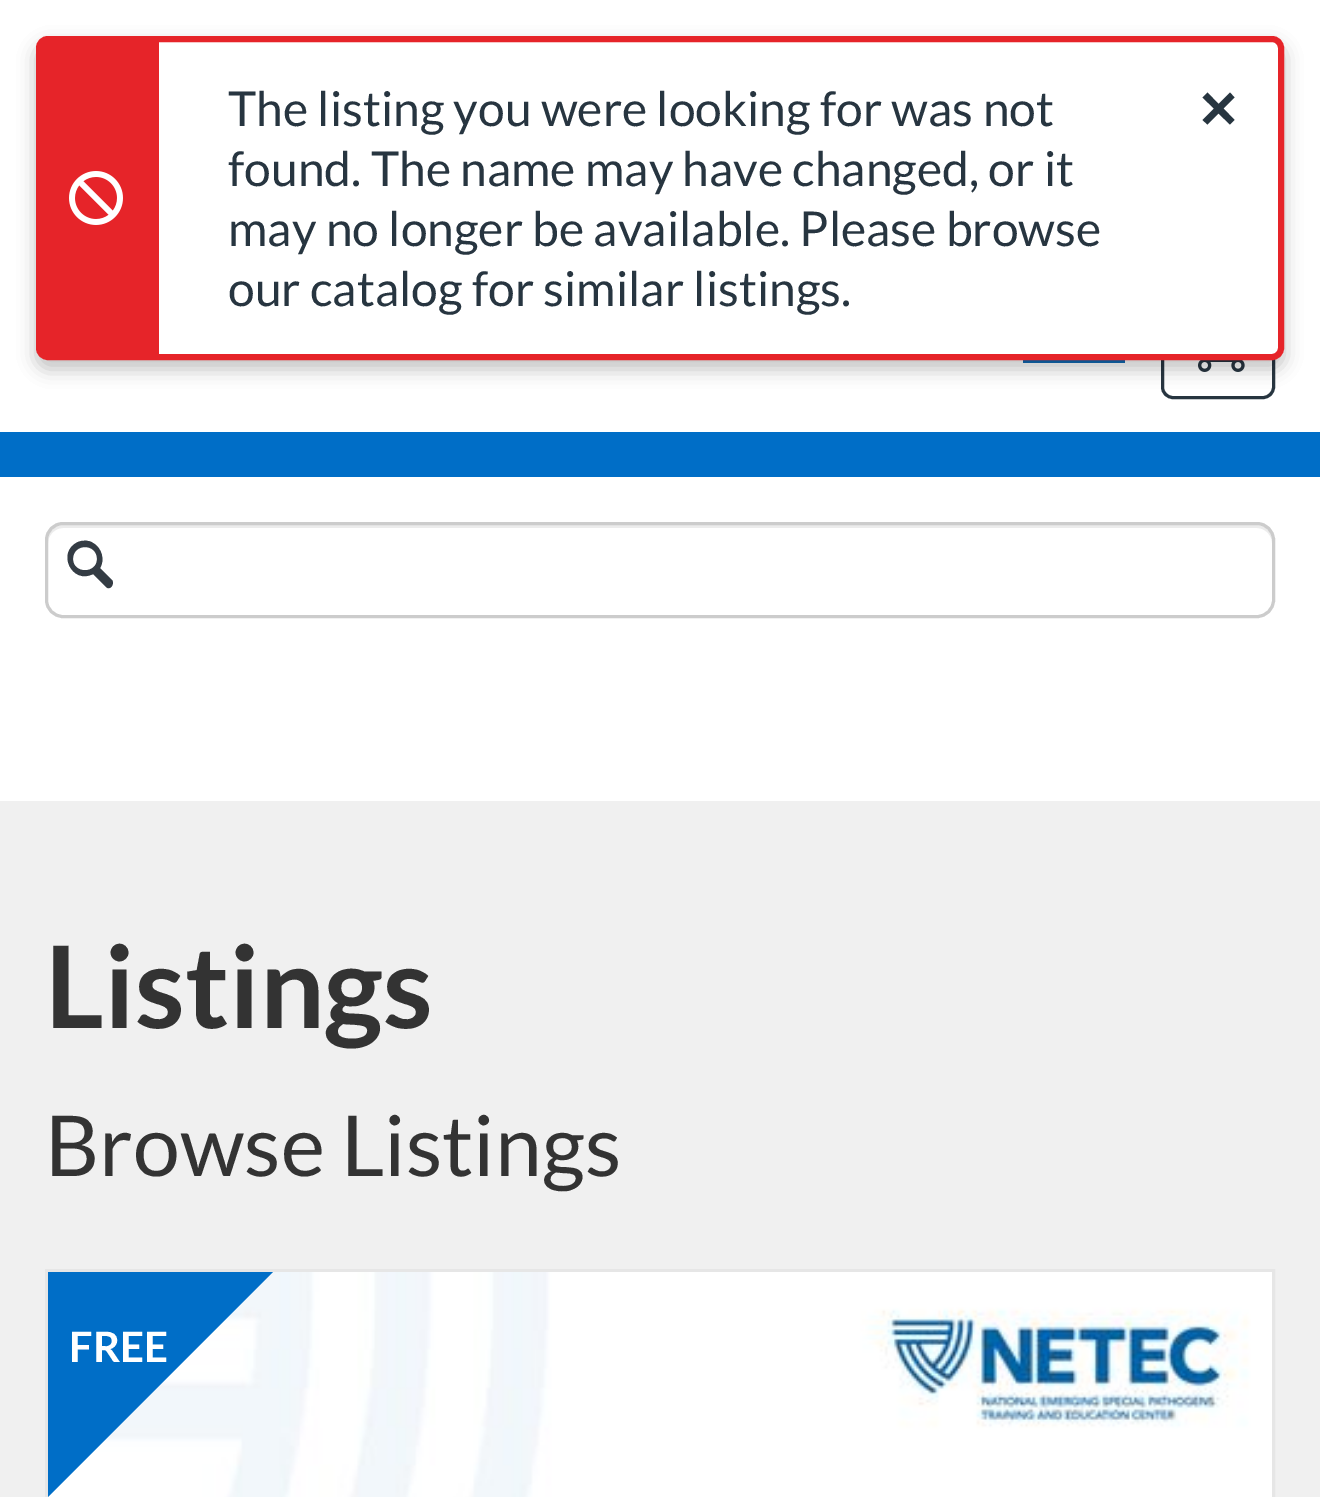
%!PS
<< /PageSize [1320 1497] /PageUsesTransparency true >> setpagedevice
/alpha { dup .setfillconstantalpha .setstrokeconstantalpha } def
/roundrect { 5 dict begin { /r /h /w /y /x } { exch def } forall
  x r add y moveto x w add y 2 copy h add r arct x w add y h add x 1 index r arct
  x y h add x y r arct x y 2 copy exch w add exch r arct closepath end } def
/shadow { 12 dict begin { /a /b /q /h /w /y /x } { exch def } forall gsave /was 0 def
  9 -2 -9 { dup b mul 4 div /e exch def 1 sub .425 mul 2.718 exch exp 1 add a .99 .min exch div /now exch def
    1 1 now sub 1 was sub div sub alpha /was now def
    w h .min e 2 mul add 0 gt { x e sub y e sub w e 2 mul add h e 2 mul add
      q e add b .6 mul add w h .min 2 div e add .min 0 .max roundrect fill } if } for grestore end } def
/picture { 5 dict begin { /h /w /y /x /name } { exch def } forall
  gsave x y translate w h scale
  w h 8 [w 0 0 h 0 0] name (r) file false 3 colorimage grestore end } def
0 .pushpdf14devicefilter
0 1497 translate 1 -1 scale
4 setmiterlimit
1 setgray
0 0 1320 1497 rectfill
0.055 0.408 0.702 setrgbcolor
1023 360 102 3 rectfill
0.153 0.208 0.251 setrgbcolor
3 setlinewidth
1162.5 286.5 111 111 10.5 roundrect stroke
(img2.rgb) 1198 360 47 12 picture
0 setgray
36 45 1248 324 12 9 0.15 shadow
36 45 1248 324 12 9 0.1 shadow
1 setgray
39 39 1242 318 9 roundrect gsave fill grestore
0.902 0.141 0.161 setrgbcolor
6 setlinewidth
stroke
newpath 51 39 moveto 159 39 lineto 159 357 lineto 51 357 lineto 44.5 357 39 351.5 39 345 curveto 39 51 lineto 39 44.5 44.5 39 51 39 curveto closepath fill
(img1.rgb) 69 171 54 54 picture
/Lato-Regular [48 0 0 -48 0 0] selectfont
0.153 0.208 0.251 setrgbcolor
228 126 moveto (The listing you were looking for was not) show
228 186 moveto (found. The name may have changed, or it) show
228 246 moveto (may no longer be available. Please browse) show
228 306 moveto (our catalog for similar listings.) show
newpath 1214 108.5 moveto 1202.5 120 lineto 1207.5 124.5 lineto 1218.5 113.5 lineto 1230 124.5 lineto 1234.5 120 lineto 1223.5 108.5 lineto 1234.5 97.5 lineto 1230 92.5 lineto 1218.5 104 lineto 1207.5 92.5 lineto 1202.5 97.5 lineto closepath fill
0 0.431 0.78 setrgbcolor
0 432 1320 45 rectfill
0.925 setgray
newpath 63 528 moveto 1257 528 lineto 1265 528 1272 535 1272 543 curveto 1272 540 lineto 1272 532 1265 525 1257 525 curveto 63 525 lineto 55 525 48 532 48 540 curveto 48 543 lineto 48 535 55 528 63 528 curveto closepath fill
0.8 setgray
3 setlinewidth
46.5 523.5 1227 93 16.5 roundrect stroke
0.204 0.235 0.267 setrgbcolor
newpath 112 580 moveto 100 568 lineto 105 560 102 548 93 543 curveto 89 540 83 540 78 542 curveto 56 552 72 585 93 574 curveto 106 587 lineto 110 591 115 584 112 580 curveto closepath 73 559 moveto 73 543 97 543 97 559 curveto 97 574 73 574 73 559 curveto closepath fill
0.941 setgray
0 801 1320 696 rectfill
/Lato-Bold [114 0 0 -114 0 0] selectfont
0.2 setgray
45 1028 moveto (Listings) show
/Lato-Regular [84 0 0 -84 0 0] selectfont
45 1176 moveto (Browse Listings) show
0.902 setgray
46.5 1270.5 1227 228 rectstroke
(img3.rgb) 48 1272 1224 225 picture
0 0.431 0.78 setrgbcolor
newpath 48 1272 moveto 273 1272 lineto 48 1497 lineto closepath fill
/Lato-Bold [42 0 0 -42 0 0] selectfont
1 setgray
69 1362 moveto (FREE) show
.poppdf14devicefilter showpage
